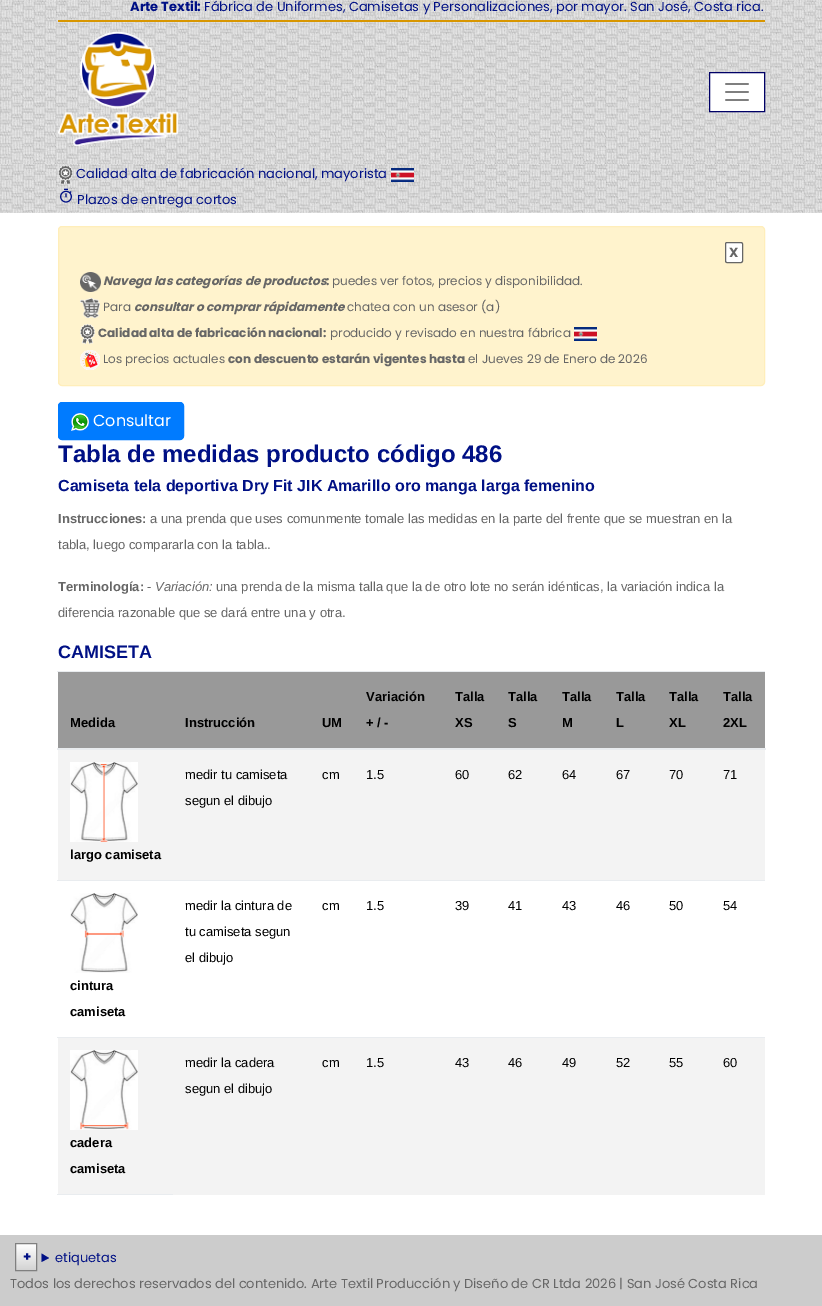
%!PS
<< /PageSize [822 1306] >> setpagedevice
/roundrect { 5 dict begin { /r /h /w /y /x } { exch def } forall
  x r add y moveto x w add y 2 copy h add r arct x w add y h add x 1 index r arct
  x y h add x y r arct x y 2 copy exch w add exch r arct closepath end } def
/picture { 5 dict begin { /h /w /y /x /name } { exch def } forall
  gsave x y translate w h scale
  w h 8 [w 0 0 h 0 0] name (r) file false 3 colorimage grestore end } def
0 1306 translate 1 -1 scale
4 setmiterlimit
1 setgray
0 0 822 1306 rectfill
(img1.rgb) 0 0 822 213 picture
/Poppins-Bold [13 0 0 -13 0 0] selectfont
0 0.063 0.522 setrgbcolor
130 11 moveto (Arte Textil:) show
/Poppins-Regular [13 0 0 -13 0 0] selectfont
204 11 moveto (Fábrica de Uniformes, Camisetas y Personalizaciones, por mayor. San José, Costa rica.) show
0.847 0.588 0 setrgbcolor
58 20 707 2 rectfill
(img2.rgb) 58 32 120 114 picture
1 setgray
newpath 709.5 72.5 moveto 764.5 72.5 lineto 764.5 111.5 lineto 709.5 111.5 lineto closepath gsave fill grestore
0 0 0.4 setrgbcolor
stroke
(img3.rgb) 725 83 24 18 picture
(img4.rgb) 58 165 15 20 picture
0 0.063 0.522 setrgbcolor
76 178 moveto (Calidad alta de fabricación nacional, mayorista) show
(img5.rgb) 391 168 23 14 picture
(img6.rgb) 60 188 12 15 picture
77 204 moveto (Plazos de entrega cortos) show
1 0.953 0.804 setrgbcolor
58.5 226.5 706 159 3.5 roundrect gsave fill grestore
1 0.933 0.729 setrgbcolor
stroke
1 setgray
725.5 242.5 17 20 1.5 roundrect gsave fill grestore
0.4 setgray
stroke
/Poppins-Bold [13 0 0 -13 0 0] selectfont
729 257 moveto (X) show
(img7.rgb) 80 272 21 20 picture
/Poppins-BoldItalic [12 0 0 -12 0 0] selectfont
103 285 moveto (Navega las categorías de productos) show
/Poppins-Regular [12 0 0 -12 0 0] selectfont
332 285 moveto (puedes ver fotos, precios y disponibilidad.) show
/Poppins-Bold [12 0 0 -12 0 0] selectfont
326 285 moveto (:) show
(img8.rgb) 80 298 20 20 picture
/Poppins-Regular [12 0 0 -12 0 0] selectfont
103 311 moveto (Para) show
/Poppins-BoldItalic [12 0 0 -12 0 0] selectfont
134 311 moveto (consultar o comprar rápidamente) show
/Poppins-Regular [12 0 0 -12 0 0] selectfont
347 311 moveto (chatea con un asesor \(a\)) show
(img9.rgb) 80 324 15 20 picture
/Poppins-Bold [12 0 0 -12 0 0] selectfont
98 337 moveto (Calidad alta de fabricación nacional:) show
/Poppins-Regular [12 0 0 -12 0 0] selectfont
330 337 moveto (producido y revisado en nuestra fábrica) show
(img10.rgb) 574 327 23 14 picture
(img11.rgb) 80 350 20 20 picture
103 363 moveto (Los precios actuales) show
/Poppins-Bold [12 0 0 -12 0 0] selectfont
228 363 moveto (con descuento estarán vigentes hasta) show
/Poppins-Regular [12 0 0 -12 0 0] selectfont
468 363 moveto (el Jueves 29 de Enero de 2026) show
0 0.482 1 setrgbcolor
58.5 402.5 125 37 3.5 roundrect gsave fill grestore
stroke
(img12.rgb) 71 413 18 18 picture
/Poppins-Regular [16 0 0 -16 0 0] selectfont
1 setgray
93 426 moveto (Consultar) show
/LiberationSans-Bold [24 0 0 -24 0 0] selectfont
0 0.063 0.522 setrgbcolor
58 462 moveto (Tabla de medidas producto código 486) show
/LiberationSans-Bold [16 0 0 -16 0 0] selectfont
58 491 moveto (Camiseta tela deportiva Dry Fit JIK Amarillo oro manga larga femenino) show
/LiberationSans-Bold [13 0 0 -13 0 0] selectfont
0.4 setgray
58 523 moveto (Instrucciones:) show
/LiberationSans-Regular [13 0 0 -13 0 0] selectfont
150 523 moveto (a una prenda que uses comunmente tomale las medidas en la parte del frente que se muestran en la) show
58 549 moveto (tabla, luego compararla con la tabla..) show
/LiberationSans-Bold [13 0 0 -13 0 0] selectfont
58 591 moveto (Terminología:) show
/LiberationSans-Regular [13 0 0 -13 0 0] selectfont
147 591 moveto (-) show
/LiberationSans-Italic [13 0 0 -13 0 0] selectfont
155 591 moveto (Variación:) show
/LiberationSans-Regular [13 0 0 -13 0 0] selectfont
216 591 moveto (una prenda de la misma talla que la de otro lote no serán idénticas, la variación indica la) show
58 617 moveto (diferencia razonable que se dará entre una y otra.) show
/LiberationSans-Bold [18 0 0 -18 0 0] selectfont
0 0.063 0.522 setrgbcolor
58 658 moveto (CAMISETA) show
0.6 setgray
58 672 707 76 rectfill
/LiberationSans-Bold [13 0 0 -13 0 0] selectfont
0 setgray
70 727 moveto (Medida) show
185 727 moveto (Instrucción) show
322 727 moveto (UM) show
366 701 moveto (Variación) show
366 727 moveto (+ / -) show
455 701 moveto (Talla) show
455 727 moveto (XS) show
508 701 moveto (Talla) show
508 727 moveto (S) show
562 701 moveto (Talla) show
562 727 moveto (M) show
616 701 moveto (Talla) show
616 727 moveto (L) show
669 701 moveto (Talla) show
669 727 moveto (XL) show
0.914 0.925 0.937 setrgbcolor
57 671 708 1 rectfill
57 748 709 2 rectfill
0 setgray
723 701 moveto (Talla) show
723 727 moveto (2XL) show
0.953 setgray
58 750 707 130 rectfill
/LiberationSans-Regular [13 0 0 -13 0 0] selectfont
0 setgray
185 779 moveto (medir tu camiseta) show
185 805 moveto (segun el dibujo) show
322 779 moveto (cm) show
366 779 moveto (1.5) show
455 779 moveto (60) show
508 779 moveto (62) show
562 779 moveto (64) show
616 779 moveto (67) show
669 779 moveto (70) show
723 779 moveto (71) show
(img13.rgb) 70 762 68 80 picture
/LiberationSans-Bold [13 0 0 -13 0 0] selectfont
70 859 moveto (largo camiseta) show
/LiberationSans-Regular [13 0 0 -13 0 0] selectfont
185 910 moveto (medir la cintura de) show
185 936 moveto (tu camiseta segun) show
185 962 moveto (el dibujo) show
322 910 moveto (cm) show
366 910 moveto (1.5) show
455 910 moveto (39) show
508 910 moveto (41) show
562 910 moveto (43) show
616 910 moveto (46) show
669 910 moveto (50) show
0.914 0.925 0.937 setrgbcolor
57 880 708 1 rectfill
0 setgray
723 910 moveto (54) show
(img14.rgb) 70 893 68 80 picture
/LiberationSans-Bold [13 0 0 -13 0 0] selectfont
70 990 moveto (cintura) show
70 1016 moveto (camiseta) show
0.953 setgray
58 1038 707 157 rectfill
/LiberationSans-Regular [13 0 0 -13 0 0] selectfont
0 setgray
185 1067 moveto (medir la cadera) show
185 1093 moveto (segun el dibujo) show
322 1067 moveto (cm) show
366 1067 moveto (1.5) show
455 1067 moveto (43) show
508 1067 moveto (46) show
562 1067 moveto (49) show
616 1067 moveto (52) show
669 1067 moveto (55) show
0.914 0.925 0.937 setrgbcolor
57 1037 708 1 rectfill
0 setgray
723 1067 moveto (60) show
(img15.rgb) 70 1050 68 80 picture
/LiberationSans-Bold [13 0 0 -13 0 0] selectfont
70 1147 moveto (cadera) show
70 1173 moveto (camiseta) show
0.914 0.925 0.937 setrgbcolor
57 1194 116 1 rectfill
0.8 setgray
0 1235 822 71 rectfill
gsave newpath 16 1244 moveto 36 1244 lineto 36 1270 lineto 16 1270 lineto closepath clip newpath
<< /ShadingType 2 /ColorSpace /DeviceRGB /Coords [26 1244 26 1270] /Extend [true true] /Function << /FunctionType 2 /Domain [0 1] /C0 [1 1 1] /C1 [0.827 0.827 0.827] /N 1 >> >> shfill grestore
0.502 setgray
15.5 1243.5 21 27 rectstroke
/Poppins-Bold [13 0 0 -13 0 0] selectfont
0 0.063 0.522 setrgbcolor
23 1261 moveto (+) show
newpath 41.5 1253.5 moveto 49 1258 lineto 41.5 1262 lineto closepath fill
/Poppins-Regular [13 0 0 -13 0 0] selectfont
55 1262 moveto (etiquetas) show
0.4 setgray
10 1288 moveto (Todos los derechos reservados del contenido. Arte Textil Producción y Diseño de CR Ltda 2026 | San José Costa Rica) show
showpage
